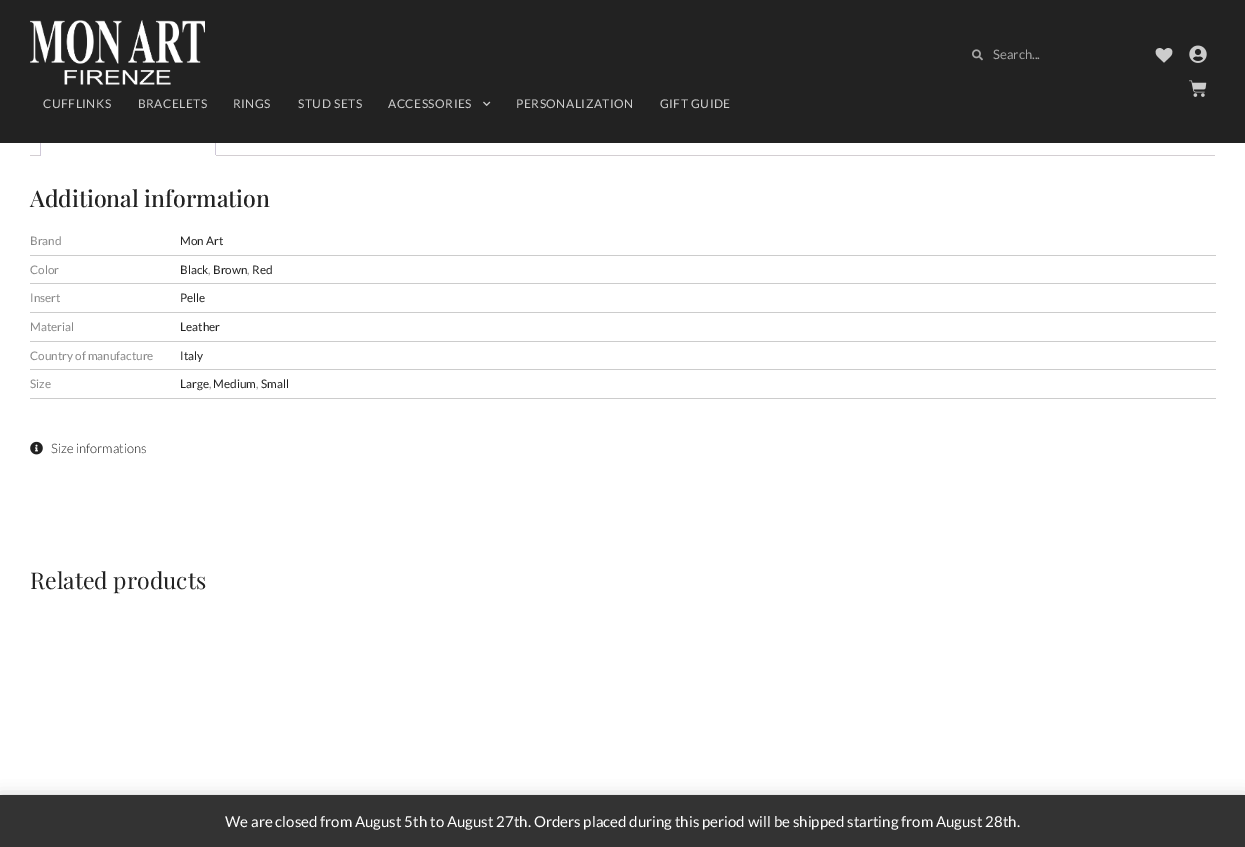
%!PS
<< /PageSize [1245 847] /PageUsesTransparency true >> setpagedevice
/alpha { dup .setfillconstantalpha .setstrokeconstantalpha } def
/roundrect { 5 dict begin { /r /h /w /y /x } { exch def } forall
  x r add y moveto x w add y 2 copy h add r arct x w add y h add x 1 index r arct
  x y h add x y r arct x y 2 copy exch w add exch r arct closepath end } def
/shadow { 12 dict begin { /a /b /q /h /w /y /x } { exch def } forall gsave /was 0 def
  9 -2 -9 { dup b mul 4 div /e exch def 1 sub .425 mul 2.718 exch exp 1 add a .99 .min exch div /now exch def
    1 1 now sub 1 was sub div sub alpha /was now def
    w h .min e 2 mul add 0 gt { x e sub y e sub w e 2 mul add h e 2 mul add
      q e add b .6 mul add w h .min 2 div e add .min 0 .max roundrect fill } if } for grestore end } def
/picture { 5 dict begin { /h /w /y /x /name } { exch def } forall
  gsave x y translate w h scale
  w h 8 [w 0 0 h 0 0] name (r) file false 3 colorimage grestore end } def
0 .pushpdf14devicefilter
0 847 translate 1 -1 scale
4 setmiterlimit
1 setgray
0 0 1245 847 rectfill
0.133 setgray
0 0 1245 143 rectfill
(img1.rgb) 972 49 11 12 picture
/Lato-Regular [13 0 0 -13 0 0] selectfont
0.655 setgray
993 59 moveto (Search...) show
(img2.rgb) 1155 48 18 15 picture
(img3.rgb) 1189 45 18 18 picture
(img4.rgb) 1189 80 18 17 picture
(img5.rgb) 30 20 175 65 picture
/Lato-Regular [12 0 0 -12 0 0] selectfont
0.8 setgray
43 108 moveto 0.5 0 (CUFFLINKS) ashow
138 108 moveto 0.5 0 (BRACELETS) ashow
233 108 moveto 0.5 0 (RINGS) ashow
298 108 moveto 0.5 0 (STUD SETS) ashow
388 108 moveto 0.5 0 (ACCESSORIES) ashow
(img6.rgb) 483 101 8 5 picture
516 108 moveto 0.5 0 (PERSONALIZATION) ashow
660 108 moveto 0.5 0 (GIFT GUIDE) ashow
0.827 0.808 0.824 setrgbcolor
30 155 1185 1 rectfill
0.812 0.784 0.847 setrgbcolor
215 143 1 13 rectfill
1 setgray
40 155 176 1 rectfill
0.812 0.784 0.847 setrgbcolor
40 143 1 13 rectfill
/PlayfairDisplay-Medium [23 0 0 -23 0 0] selectfont
0.133 setgray
30 207 moveto (Additional information) show
/Lato-Regular [11.75 0 0 -11.75 0 0] selectfont
0.533 setgray
30 245 moveto (Brand) show
0.8 setgray
30 255 1186 1 rectfill
0.133 setgray
180 245 moveto (Mon Art) show
0.533 setgray
30 274 moveto (Color) show
0.8 setgray
30 283 1186 1 rectfill
0.133 setgray
180 274 moveto (Black) show
0.533 setgray
208 274 moveto (,) show
0.133 setgray
213 274 moveto (Brown) show
0.533 setgray
247 274 moveto (,) show
0.133 setgray
252 274 moveto (Red) show
0.533 setgray
30 302 moveto (Insert) show
0.8 setgray
30 312 1186 1 rectfill
0.133 setgray
180 302 moveto (Pelle) show
0.533 setgray
30 331 moveto (Material) show
0.8 setgray
30 341 1186 1 rectfill
0.133 setgray
180 331 moveto (Leather) show
0.533 setgray
30 360 moveto (Country of manufacture) show
0.8 setgray
30 369 1186 1 rectfill
0.133 setgray
180 360 moveto (Italy) show
0.533 setgray
30 388 moveto (Size) show
0.8 setgray
30 398 1186 1 rectfill
0.133 setgray
180 388 moveto (Large) show
0.533 setgray
209 388 moveto (,) show
0.133 setgray
213 388 moveto (Medium) show
0.533 setgray
256 388 moveto (,) show
0.133 setgray
261 388 moveto (Small) show
(img7.rgb) 30 441 13 14 picture
/Lato-Light [13 0 0 -13 0 0] selectfont
51 453 moveto (Size informations) show
/PlayfairDisplay-Regular [23 0 0 -23 0 0] selectfont
30 589 moveto (Related products) show
0 setgray
0 796 1245 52 0 7.5 0.2 shadow
0.2 setgray
0 795 1245 52 rectfill
/Lato-Regular [15 0 0 -15 0 0] selectfont
1 setgray
225 827 moveto (We are closed from August 5th to August 27th. Orders placed during this period will be shipped starting from August 28th.) show
.poppdf14devicefilter showpage
